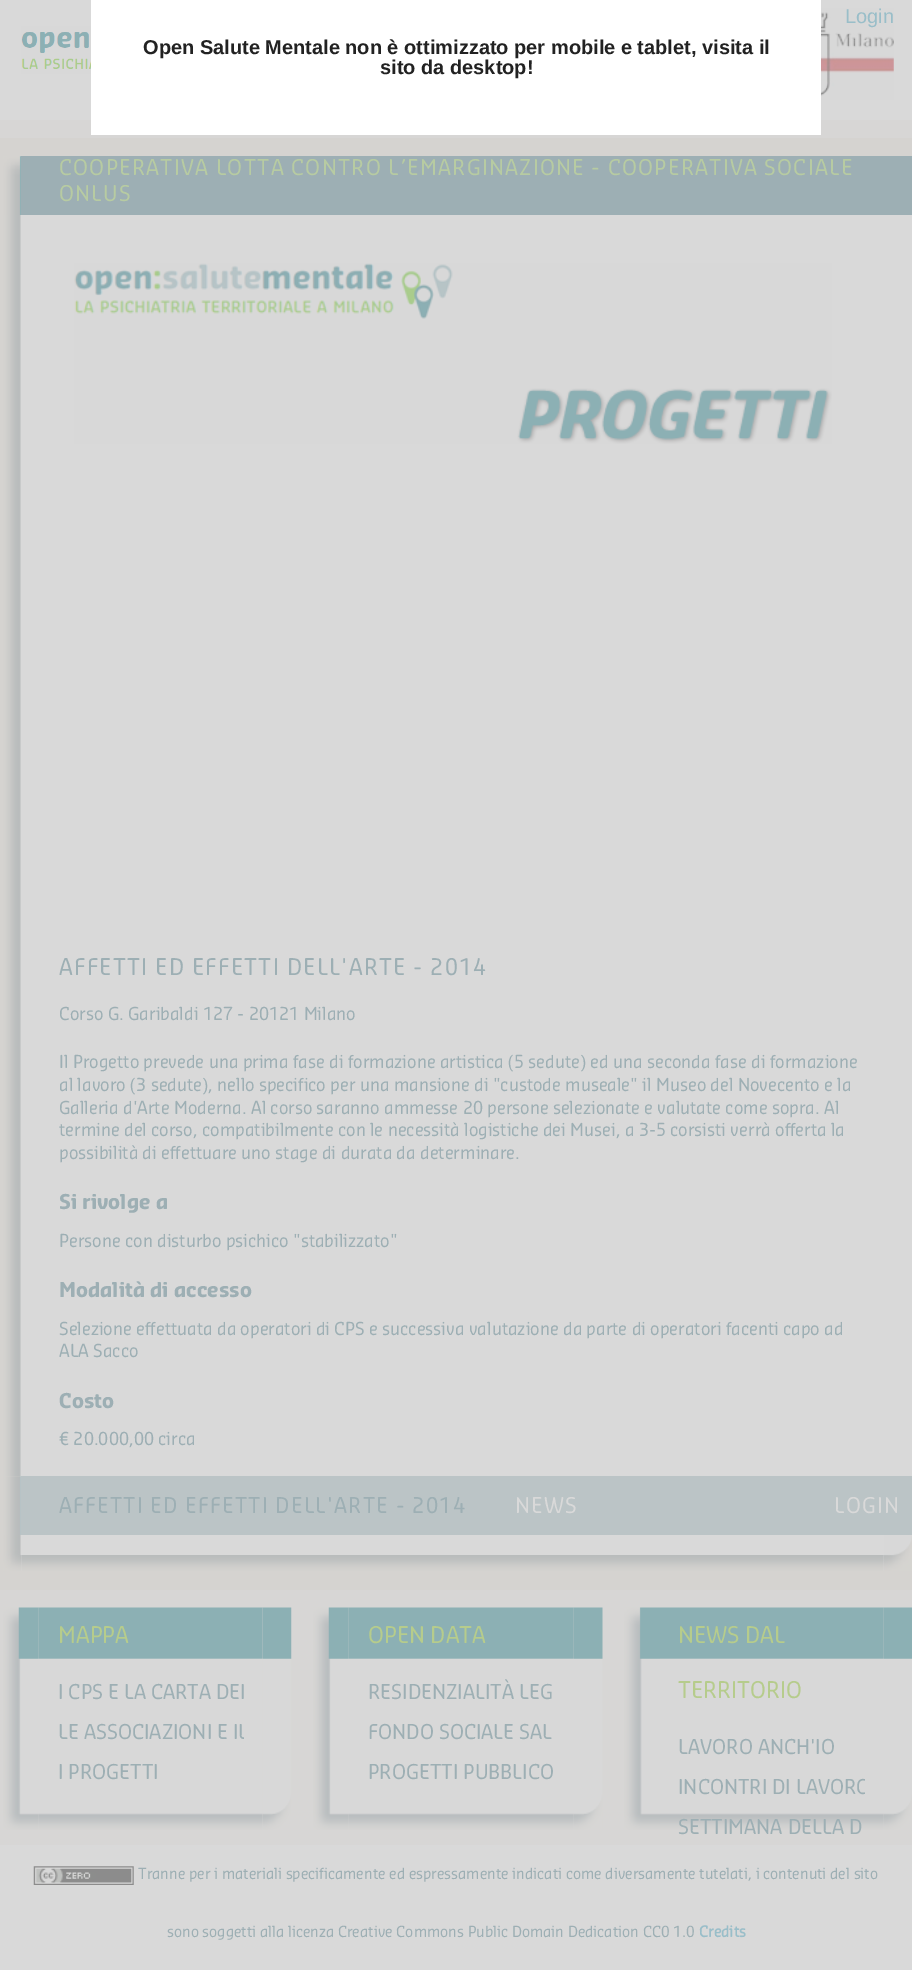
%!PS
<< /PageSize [912 1970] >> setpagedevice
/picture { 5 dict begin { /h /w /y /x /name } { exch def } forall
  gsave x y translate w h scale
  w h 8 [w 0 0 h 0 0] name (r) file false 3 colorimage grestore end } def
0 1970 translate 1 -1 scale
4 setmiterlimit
0.851 setgray
0 0 912 1970 rectfill
0.843 0.839 0.835 setrgbcolor
0 120 912 18 rectfill
(img1.rgb) 21 26 70 48 picture
(img2.rgb) 821 8 73 92 picture
/LiberationSans-Regular [20 0 0 -20 0 0] selectfont
0.6 0.745 0.788 setrgbcolor
845 23 moveto (Login) show
1 setgray
91 0 730 135 rectfill
/LiberationSans-Bold [20 0 0 -20 0 0] selectfont
0.133 setgray
143 54 moveto (Open Salute Mentale non è ottimizzato per mobile e tablet, visita il) show
380 74 moveto (sito da desktop!) show
0.835 0.827 0.816 setrgbcolor
0 138 912 1452 rectfill
(img3.rgb) 3 156 18 59 picture
0.616 0.686 0.706 setrgbcolor
21 156 891 59 rectfill
/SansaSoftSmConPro-Regular [21.25 0 0 -21.25 0 0] selectfont
0.718 0.796 0.635 setrgbcolor
59 175 moveto 1.25 0 (COOPERATIVA LOTTA CONTRO L’EMARGINAZIONE - COOPERATIVA SOCIALE) ashow
59 201 moveto 1.25 0 (ONLUS) ashow
(img4.rgb) 3 215 18 1262 picture
0.851 setgray
21 215 891 1261 rectfill
(img5.rgb) 74 263 758 181 picture
/SansaSoftSmConPro-Regular [22.5 0 0 -22.5 0 0] selectfont
0.616 0.686 0.706 setrgbcolor
59 975 moveto 1.25 0 (AFFETTI ED EFFETTI DELL'ARTE - 2014) ashow
/SansaSoftSmConPro-Regular [17.5 0 0 -17.5 0 0] selectfont
59 1020 moveto (Corso G. Garibaldi 127 - 20121 Milano) show
59 1068 moveto (Il Progetto prevede una prima fase di formazione artistica \(5 sedute\) ed una seconda fase di formazione) show
59 1091 moveto (al lavoro \(3 sedute\), nello specifico per una mansione di "custode museale" il Museo del Novecento e la) show
59 1114 moveto (Galleria d'Arte Moderna. Al corso saranno ammesse 20 persone selezionate e valutate come sopra. Al) show
59 1136 moveto (termine del corso, compatibilmente con le necessità logistiche dei Musei, a 3-5 corsisti verrà offerta la) show
59 1159 moveto (possibilità di effettuare uno stage di durata da determinare.) show
/SansaSoftSmConPro-Bold [20 0 0 -20 0 0] selectfont
59 1209 moveto (Si rivolge a) show
/SansaSoftSmConPro-Regular [17.5 0 0 -17.5 0 0] selectfont
59 1247 moveto (Persone con disturbo psichico "stabilizzato") show
/SansaSoftSmConPro-Bold [20 0 0 -20 0 0] selectfont
59 1297 moveto (Modalità di accesso) show
/SansaSoftSmConPro-Regular [17.5 0 0 -17.5 0 0] selectfont
59 1335 moveto (Selezione effettuata da operatori di CPS e successiva valutazione da parte di operatori facenti capo ad) show
59 1357 moveto (ALA Sacco) show
/SansaSoftSmConPro-Bold [20 0 0 -20 0 0] selectfont
59 1408 moveto (Costo) show
/SansaSoftSmConPro-Regular [17.5 0 0 -17.5 0 0] selectfont
59 1445 moveto (€ 20.000,00 circa) show
(img6.rgb) 3 1476 18 59 picture
0.733 0.769 0.776 setrgbcolor
21 1476 891 59 rectfill
/SansaSoftSmConPro-Regular [21.25 0 0 -21.25 0 0] selectfont
0.616 0.686 0.706 setrgbcolor
59 1513 moveto 1.25 0 (AFFETTI ED EFFETTI DELL'ARTE - 2014) ashow
0.851 setgray
515 1513 moveto 1.25 0 (NEWS) ashow
834 1513 moveto 1.25 0 (LOGIN) ashow
(img7.rgb) 3 1535 18 36 picture
(img8.rgb) 884 1535 28 36 picture
21 1535 863 36 rectfill
(img9.rgb) 21 1555 863 16 picture
0.843 0.839 0.835 setrgbcolor
0 1590 912 255 rectfill
(img10.rgb) 3 1607 36 223 picture
(img11.rgb) 262 1607 30 223 picture
(img12.rgb) 38 1607 225 223 picture
/SansaSoftSmConPro-Regular [22.5 0 0 -22.5 0 0] selectfont
0.714 0.8 0.549 setrgbcolor
58 1643 moveto (MAPPA) show
/SansaSoftSmConPro-Regular [20 0 0 -20 0 0] selectfont
0.616 0.686 0.706 setrgbcolor
58 1699 moveto (I CPS E LA CARTA DEI) show
gsave
58 1673 186 120 rectclip
58 1739 moveto (LE ASSOCIAZIONI E IL) show
grestore
58 1779 moveto (I PROGETTI) show
(img10.rgb) 313 1607 36 223 picture
(img13.rgb) 573 1607 30 223 picture
(img14.rgb) 348 1607 226 223 picture
/SansaSoftSmConPro-Regular [22.5 0 0 -22.5 0 0] selectfont
0.714 0.8 0.549 setrgbcolor
368 1643 moveto (OPEN DATA) show
/SansaSoftSmConPro-Regular [20 0 0 -20 0 0] selectfont
0.616 0.686 0.706 setrgbcolor
368 1699 moveto (RESIDENZIALITÀ LEG) show
368 1739 moveto (FONDO SOCIALE SAL) show
368 1779 moveto (PROGETTI PUBBLICO) show
(img15.rgb) 624 1607 36 223 picture
(img16.rgb) 883 1607 29 223 picture
(img17.rgb) 660 1607 224 223 picture
/SansaSoftSmConPro-Regular [22.5 0 0 -22.5 0 0] selectfont
0.714 0.8 0.549 setrgbcolor
678 1643 moveto (NEWS DAL) show
678 1698 moveto (TERRITORIO) show
/SansaSoftSmConPro-Regular [20 0 0 -20 0 0] selectfont
0.616 0.686 0.706 setrgbcolor
678 1754 moveto (LAVORO ANCH'IO) show
gsave
679 1728 186 120 rectclip
678 1794 moveto (INCONTRI DI LAVORO) show
grestore
678 1834 moveto (SETTIMANA DELLA D) show
(img18.rgb) 33 1866 101 19 picture
/SansaSoftSmConPro-Regular [15 0 0 -15 0 0] selectfont
138 1879 moveto (Tranne per i materiali specificamente ed espressamente indicati come diversamente tutelati, i contenuti del sito) show
167 1937 moveto (sono soggetti alla licenza Creative Commons Public Domain Dedication CC0 1.0) show
/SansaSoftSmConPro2-Bold [15 0 0 -15 0 0] selectfont
0.6 0.745 0.788 setrgbcolor
699 1937 moveto (Credits) show
showpage
